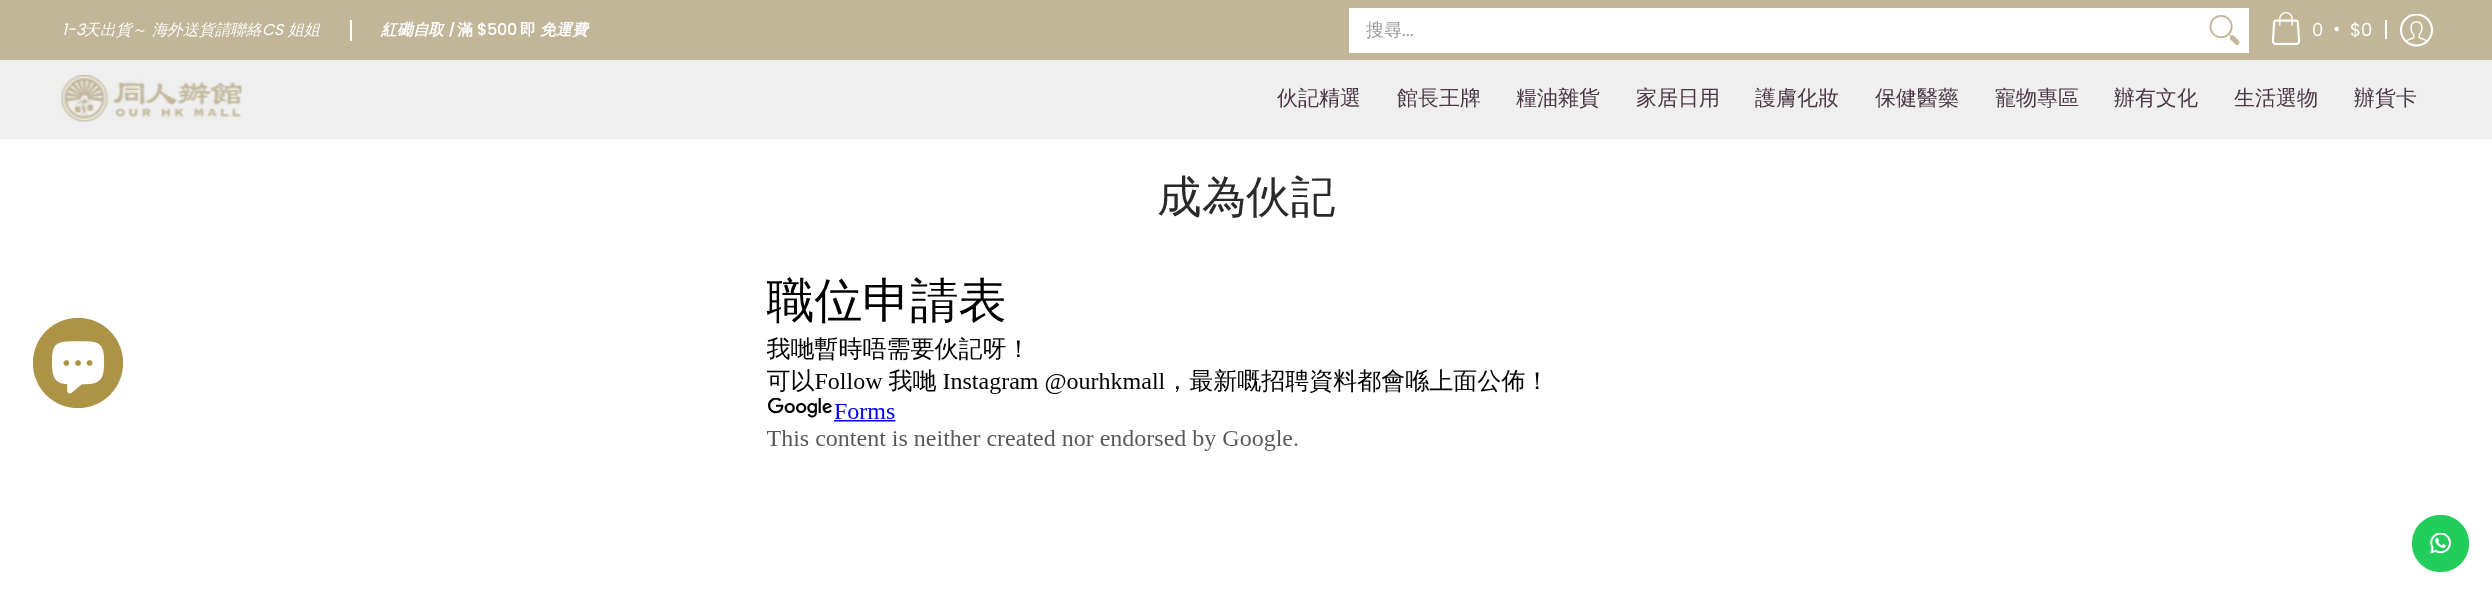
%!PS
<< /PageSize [2492 595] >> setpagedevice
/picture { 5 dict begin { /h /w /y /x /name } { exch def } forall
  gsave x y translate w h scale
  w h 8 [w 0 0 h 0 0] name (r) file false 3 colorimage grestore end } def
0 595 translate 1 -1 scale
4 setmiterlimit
1 setgray
0 0 2492 595 rectfill
0.757 0.718 0.596 setrgbcolor
0 0 2492 60 rectfill
/Poppins-Italic [15.75 0 0 -15.75 0 0] selectfont
1 setgray
62 35 moveto (1-3) show
/WenQuanYiZenHei-MediumItalic [15.75 0 0 -15.75 0 0] selectfont
84 35 moveto (天出貨～ 海外送貨請聯絡) show
/Poppins-Italic [15.75 0 0 -15.75 0 0] selectfont
262 35 moveto (CS) show
/WenQuanYiZenHei-MediumItalic [15.75 0 0 -15.75 0 0] selectfont
288 35 moveto (姐姐) show
350 20 2 21 rectfill
/WenQuanYiZenHei-BoldItalic [15.75 0 0 -15.75 0 0] selectfont
381 35 moveto (紅磡自取) show
/Poppins-BoldItalic [15.75 0 0 -15.75 0 0] selectfont
448 35 moveto (|) show
/WenQuanYiZenHei-Bold [15.75 0 0 -15.75 0 0] selectfont
457 35 moveto (滿) show
/Poppins-Bold [15.75 0 0 -15.75 0 0] selectfont
477 35 moveto ($500) show
/WenQuanYiZenHei-Bold [15.75 0 0 -15.75 0 0] selectfont
520 35 moveto (即) show
/WenQuanYiZenHei-BoldItalic [15.75 0 0 -15.75 0 0] selectfont
540 35 moveto (免運費) show
1349 8 900 45 rectfill
(img1.rgb) 2209 15 31 30 picture
/WenQuanYiZenHei-Medium [18 0 0 -18 0 0] selectfont
0.596 setgray
1366 36 moveto (搜尋) show
/Poppins-Regular [18 0 0 -18 0 0] selectfont
1402 36 moveto (...) show
(img2.rgb) 2271 12 30 33 picture
1 setgray
2312 36 moveto (0) show
2333 35 moveto (•) show
2350 36 moveto ($0) show
2385 20 2 19 rectfill
(img3.rgb) 2400 14 33 33 picture
0.937 setgray
0 60 2492 79 rectfill
(img4.rgb) 61 75 181 47 picture
/WenQuanYiZenHei-Medium [21 0 0 -21 0 0] selectfont
0.298 0.22 0.271 setrgbcolor
1277 105 moveto (伙記精選) show
1397 105 moveto (館長王牌) show
1516 105 moveto (糧油雜貨) show
1636 105 moveto (家居日用) show
1755 105 moveto (護膚化妝) show
1875 105 moveto (保健醫藥) show
1995 105 moveto (寵物專區) show
2114 105 moveto (辦有文化) show
2234 105 moveto (生活選物) show
2354 105 moveto (辦貨卡) show
/WenQuanYiZenHei-Medium [44.5 0 0 -44.5 0 0] selectfont
0.161 setgray
1157 212 moveto (成為伙記) show
(img5.rgb) 766 277 773 174 picture
0.675 0.576 0.271 setrgbcolor
newpath 78 363 45 0 360 arc closepath fill
(img6.rgb) 51 341 54 53 picture
0.133 0.804 0.357 setrgbcolor
newpath 2440.5 543.5 28.5 0 360 arc closepath fill
(img7.rgb) 2430 533 21 21 picture
showpage
